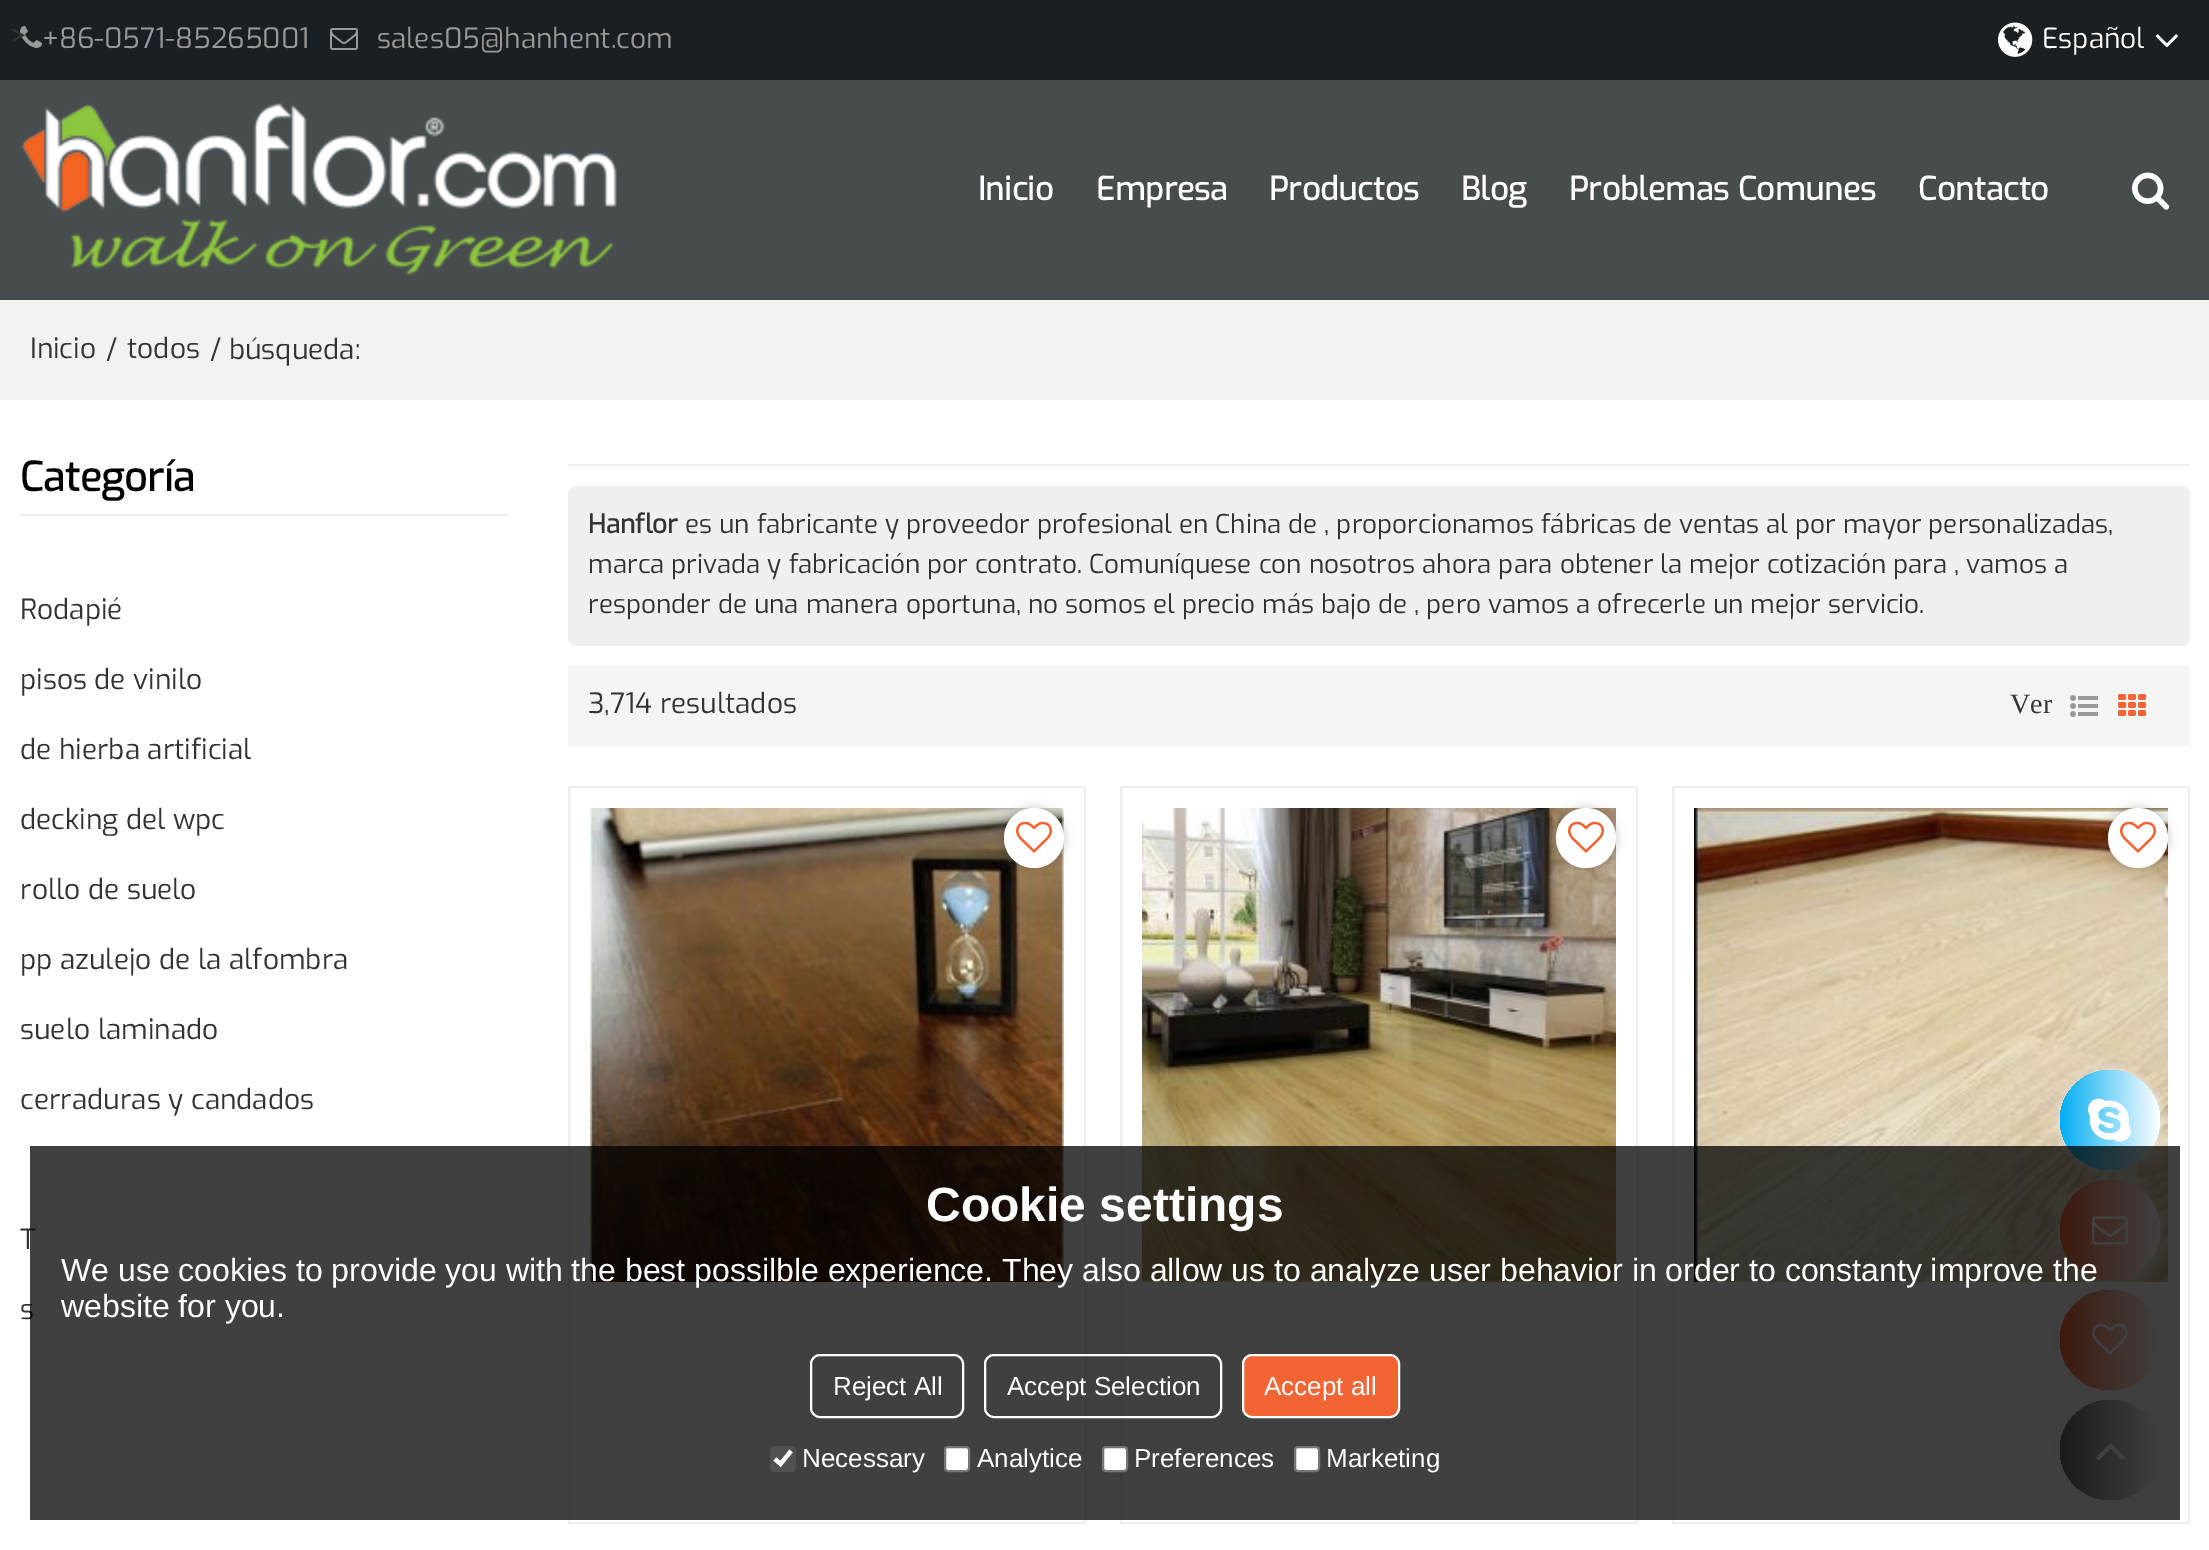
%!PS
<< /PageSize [2209 1550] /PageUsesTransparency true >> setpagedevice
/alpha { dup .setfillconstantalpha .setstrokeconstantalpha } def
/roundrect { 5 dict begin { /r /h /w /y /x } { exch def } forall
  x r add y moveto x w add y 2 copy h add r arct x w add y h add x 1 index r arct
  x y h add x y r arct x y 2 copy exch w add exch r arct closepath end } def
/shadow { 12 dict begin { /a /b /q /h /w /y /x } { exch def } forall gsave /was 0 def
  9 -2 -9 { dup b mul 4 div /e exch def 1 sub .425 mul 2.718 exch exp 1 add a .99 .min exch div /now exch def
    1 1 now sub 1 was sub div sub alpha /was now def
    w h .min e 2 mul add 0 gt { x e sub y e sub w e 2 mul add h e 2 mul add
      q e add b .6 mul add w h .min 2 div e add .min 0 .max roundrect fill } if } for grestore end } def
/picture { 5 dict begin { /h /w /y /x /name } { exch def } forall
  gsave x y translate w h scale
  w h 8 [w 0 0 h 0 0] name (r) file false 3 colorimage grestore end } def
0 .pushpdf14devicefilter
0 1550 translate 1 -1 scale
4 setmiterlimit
1 setgray
0 0 2209 1550 rectfill
0.098 0.122 0.137 setrgbcolor
0 0 2209 80 rectfill
(img1.rgb) 20 26 22 22 picture
/Exo-Regular [28 0 0 -28 0 0] selectfont
0.6 setgray
42 48 moveto (+86-0571-85265001) show
(img2.rgb) 330 28 28 22 picture
377 48 moveto (sales05@hanhent.com) show
(img3.rgb) 1998 22 35 35 picture
1 setgray
2042 48 moveto (Español) show
(img4.rgb) 2155 34 23 14 picture
/JosefinSans-Regular [28 0 0 -28 0 0] selectfont
0.2 setgray
10 42 moveto (>) show
/Exo-Regular [28 0 0 -28 0 0] selectfont
20 619 moveto (Rodapié) show
20 689 moveto (pisos de vinilo) show
20 759 moveto (de hierba artificial) show
20 829 moveto (decking del wpc) show
20 899 moveto (rollo de suelo) show
20 969 moveto (pp azulejo de la alfombra) show
20 1039 moveto (suelo laminado) show
20 1109 moveto (cerraduras y candados) show
20 1249 moveto (T) show
20 1319 moveto (s) show
0.933 setgray
20 514 488 2 rectfill
/Exo-Bold [40 0 0 -40 0 0] selectfont
0 setgray
20 491 moveto (Categoría) show
0.933 setgray
568 464 1622 2 rectfill
0.941 setgray
568 486 1622 160 8 roundrect fill
/Exo-Bold [26 0 0 -26 0 0] selectfont
0.2 setgray
588 533 moveto (Hanflor) show
/Exo-Regular [26 0 0 -26 0 0] selectfont
685 533 moveto (es un fabricante y proveedor profesional en China de , proporcionamos fábricas de ventas al por mayor personalizadas,) show
588 573 moveto (marca privada y fabricación por contrato. Comuníquese con nosotros ahora para obtener la mejor cotización para , vamos a) show
588 613 moveto (responder de una manera oportuna, no somos el precio más bajo de , pero vamos a ofrecerle un mejor servicio.) show
0.961 setgray
568 666 1622 80 rectfill
/Exo-Regular [28 0 0 -28 0 0] selectfont
0.2 setgray
588 713 moveto (3,714 resultados) show
/LiberationSerif-Regular [28 0 0 -28 0 0] selectfont
2010 713 moveto (Ver) show
(img5.rgb) 2070 695 28 22 picture
(img6.rgb) 2118 694 28 22 picture
0.933 setgray
2 setlinewidth
569 787 516 736 rectstroke
(img8.rgb) 590 808 474 474 picture
0 setgray
1004 808 60 60 30 5 0.2 shadow
1 setgray
newpath 1034 838 30 0 360 arc closepath fill
(img7.rgb) 1016 821 36 32 picture
0.933 setgray
1121 787 516 736 rectstroke
(img9.rgb) 1142 808 474 474 picture
0 setgray
1556 808 60 60 30 5 0.2 shadow
1 setgray
newpath 1586 838 30 0 360 arc closepath fill
(img7.rgb) 1568 821 36 32 picture
0.933 setgray
1673 787 516 736 rectstroke
(img10.rgb) 1694 808 474 474 picture
0 setgray
2108 808 60 60 30 5 0.2 shadow
1 setgray
newpath 2138 838 30 0 360 arc closepath fill
(img7.rgb) 2120 821 36 32 picture
0.278 0.298 0.31 setrgbcolor
0 80 2209 220 rectfill
(img11.rgb) 21 103 596 172 picture
/Exo-Bold [32 0 0 -32 0 0] selectfont
1 setgray
978 200 moveto (Inicio) show
1096 200 moveto (Empresa) show
1269 200 moveto (Productos) show
1461 200 moveto (Blog) show
1569 200 moveto (Problemas Comunes) show
1918 200 moveto (Contacto) show
(img12.rgb) 2132 172 38 38 picture
0.949 setgray
0 300 2209 100 rectfill
/Exo-Regular [28 0 0 -28 0 0] selectfont
0.2 setgray
30 358 moveto (Inicio) show
106 359 moveto (/) show
127 358 moveto (todos) show
210 359 moveto (/ búsqueda:) show
0.933 setgray
2060 1070 100 100 50 5 1 shadow
gsave newpath 2110 1120 50 0 360 arc closepath clip newpath
<< /ShadingType 2 /ColorSpace /DeviceRGB /Coords [2060 1120 2160 1120] /Extend [true true] /Function << /FunctionType 2 /Domain [0 1] /C0 [0.004 0.682 0.953] /C1 [1 1 1] /N 1 >> >> shfill grestore
2060 1180 100 100 50 5 1 shadow
gsave newpath 2110 1230 50 0 360 arc closepath clip newpath
<< /ShadingType 2 /ColorSpace /DeviceRGB /Coords [2060 1230 2160 1230] /Extend [true true] /Function << /FunctionType 2 /Domain [0 1] /C0 [0.949 0.392 0.204] /C1 [1 1 1] /N 1 >> >> shfill grestore
(img14.rgb) 2092 1216 36 29 picture
2060 1290 100 100 50 5 1 shadow
gsave newpath 2110 1340 50 0 360 arc closepath clip newpath
<< /ShadingType 2 /ColorSpace /DeviceRGB /Coords [2060 1340 2160 1340] /Extend [true true] /Function << /FunctionType 2 /Domain [0 1] /C0 [0.949 0.392 0.204] /C1 [1 1 1] /N 1 >> >> shfill grestore
(img15.rgb) 2092 1323 36 32 picture
2060 1400 100 100 50 5 1 shadow
gsave newpath 2110 1450 50 0 360 arc closepath clip newpath
<< /ShadingType 2 /ColorSpace /DeviceRGB /Coords [2060 1450 2160 1450] /Extend [true true] /Function << /FunctionType 2 /Domain [0 1] /C0 [0.4 0.4 0.4] /C1 [1 1 1] /N 1 >> >> shfill grestore
(img16.rgb) 2096 1443 30 18 picture
0.75 alpha
0 setgray
30 1146 2150 374 rectfill
/LiberationSans-Bold [48 0 0 -48 0 0] selectfont
1 alpha
1 setgray
926 1221 moveto (Cookie settings) show
/LiberationSans-Regular [32 0 0 -32 0 0] selectfont
61 1281 moveto (We use cookies to provide you with the best possilble experience. They also allow us to analyze user behavior in order to constanty improve the) show
61 1317 moveto (website for you.) show
811 1355 152 62 9 roundrect stroke
/LiberationSans-Regular [26 0 0 -26 0 0] selectfont
833 1395 moveto (Reject All) show
985 1355 236 62 9 roundrect stroke
1007 1395 moveto (Accept Selection) show
0.949 0.392 0.204 setrgbcolor
1243 1355 156 62 9 roundrect gsave fill grestore
1 setgray
stroke
1264 1395 moveto (Accept all) show
0.3 alpha
0.463 setgray
770 1446 26 26 4 roundrect fill
1 alpha
1 setgray
4.2 setlinewidth
newpath 775 1459 moveto 780.5 1464 lineto 791 1451 lineto stroke
802 1467 moveto (Necessary) show
945 1447 24 24 3 roundrect gsave fill grestore
0.463 setgray
2 setlinewidth
stroke
1 setgray
977 1467 moveto (Analytice) show
1103 1447 24 24 3 roundrect gsave fill grestore
0.463 setgray
stroke
1 setgray
1134 1467 moveto (Preferences) show
1295 1447 24 24 3 roundrect gsave fill grestore
0.463 setgray
stroke
1 setgray
1326 1467 moveto (Marketing) show
(img13.rgb) 2088 1098 43 44 picture
.poppdf14devicefilter showpage
